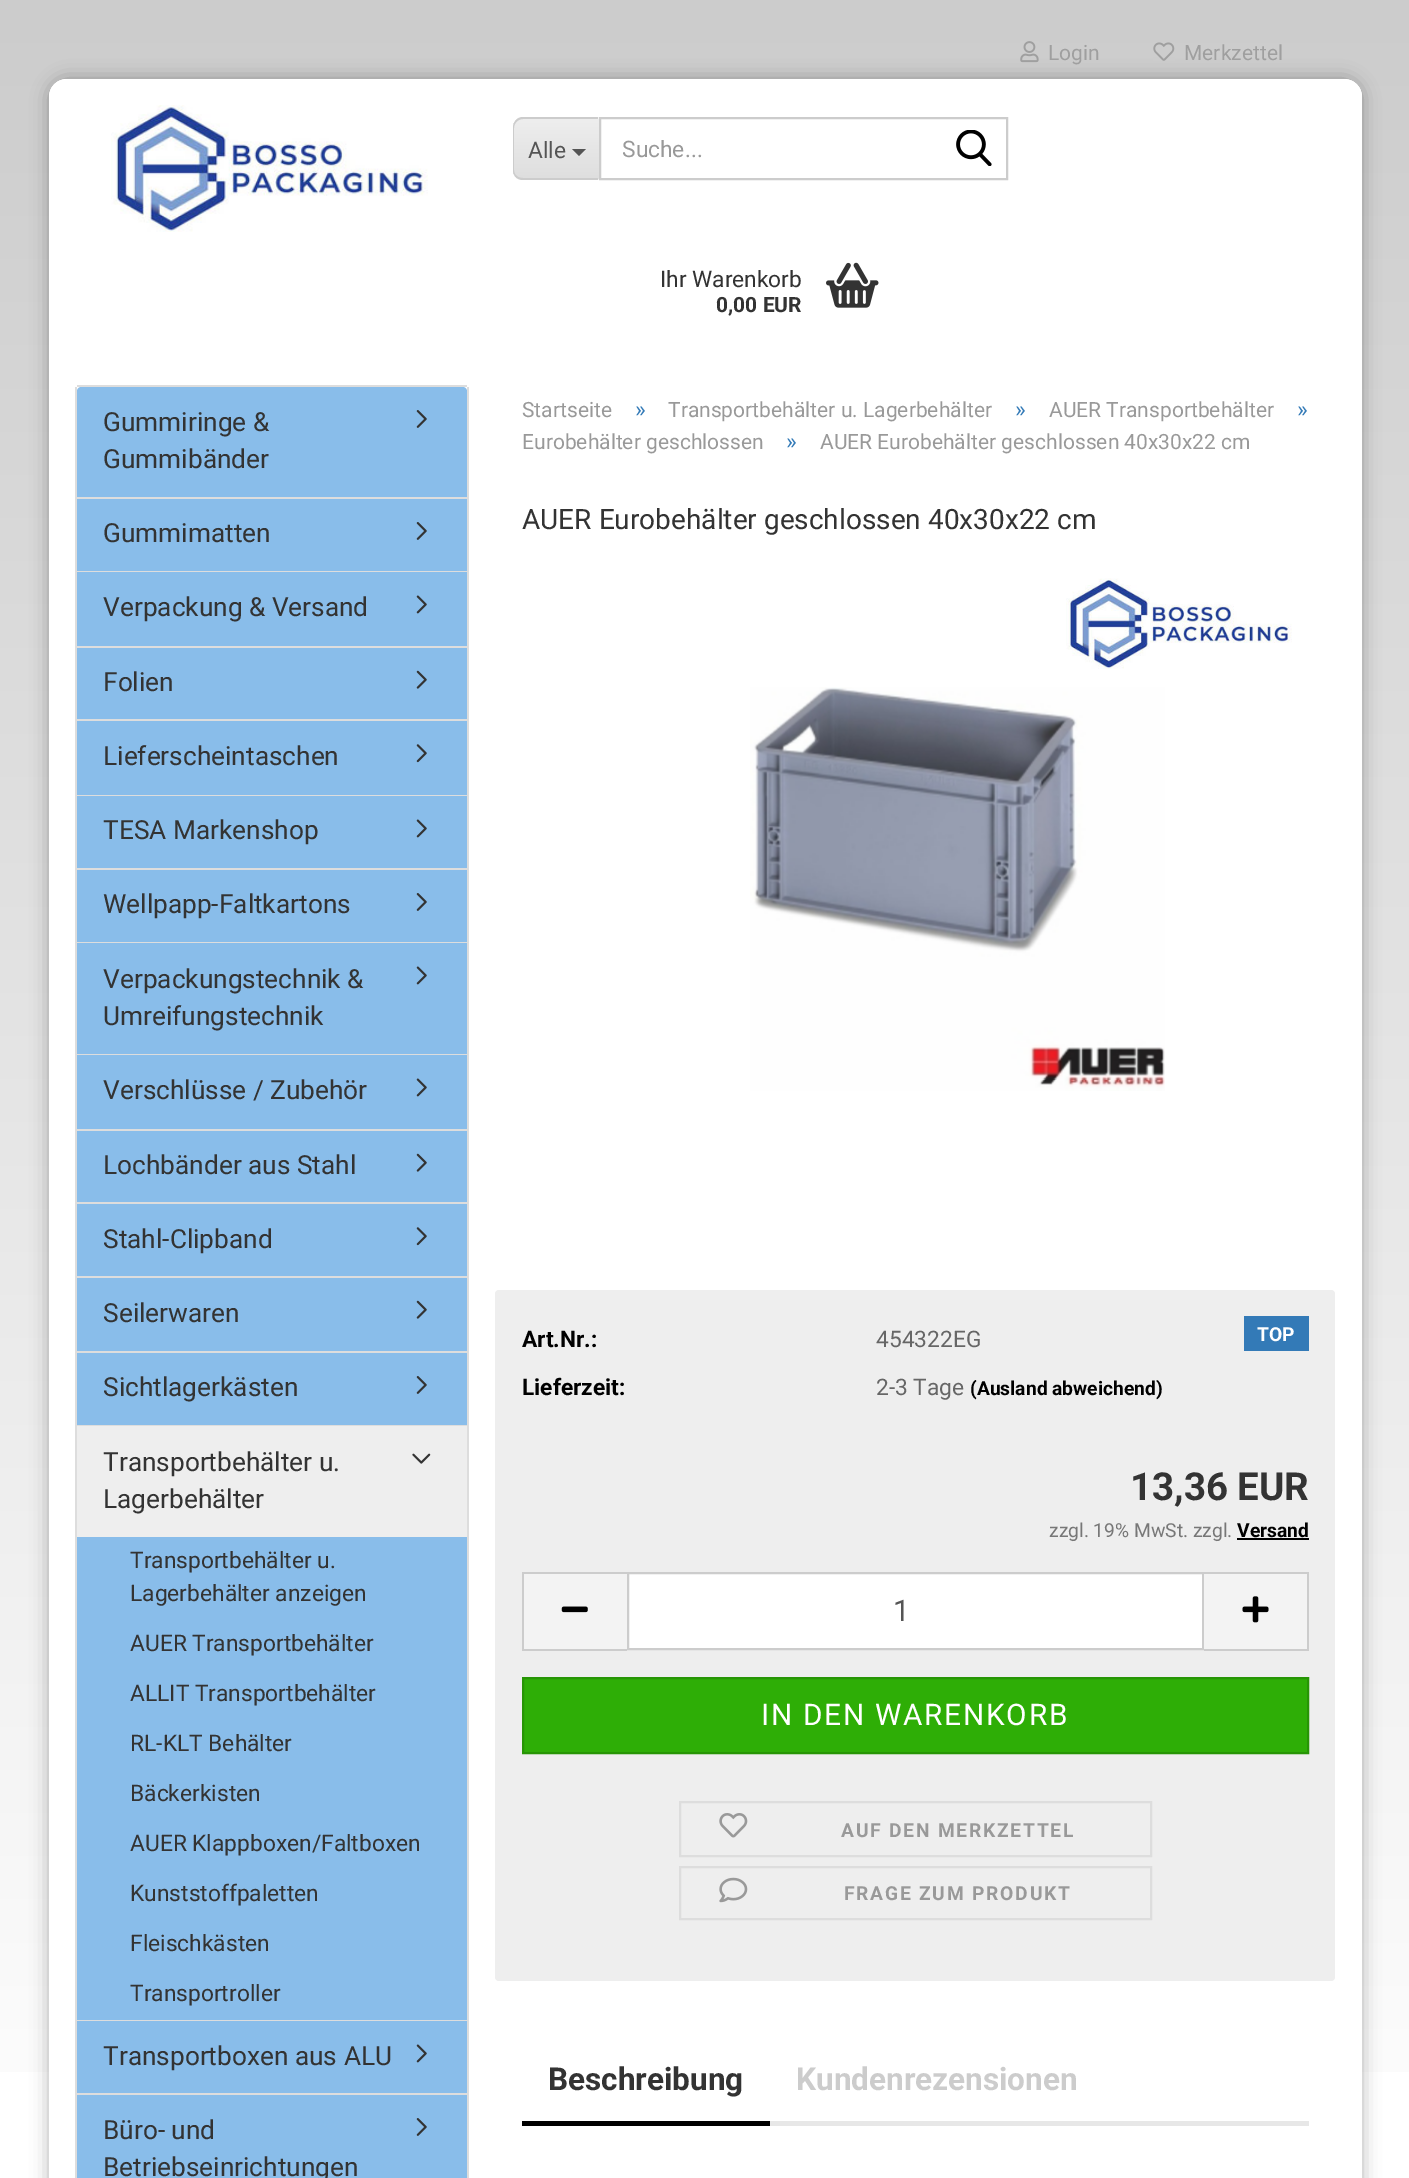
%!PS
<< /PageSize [1409 2178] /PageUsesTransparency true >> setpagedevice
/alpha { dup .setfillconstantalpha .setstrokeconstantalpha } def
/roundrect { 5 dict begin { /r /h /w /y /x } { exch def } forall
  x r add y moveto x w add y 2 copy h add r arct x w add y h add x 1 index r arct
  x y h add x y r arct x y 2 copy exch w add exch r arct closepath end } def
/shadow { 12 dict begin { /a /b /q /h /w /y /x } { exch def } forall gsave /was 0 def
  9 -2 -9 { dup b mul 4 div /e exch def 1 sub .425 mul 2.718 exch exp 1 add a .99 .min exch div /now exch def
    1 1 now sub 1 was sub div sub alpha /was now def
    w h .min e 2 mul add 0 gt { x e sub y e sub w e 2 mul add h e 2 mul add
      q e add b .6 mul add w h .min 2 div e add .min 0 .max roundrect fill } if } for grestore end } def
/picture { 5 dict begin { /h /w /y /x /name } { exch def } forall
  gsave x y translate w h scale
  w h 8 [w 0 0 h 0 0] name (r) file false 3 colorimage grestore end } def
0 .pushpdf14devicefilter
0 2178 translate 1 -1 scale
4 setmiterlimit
1 setgray
0 0 1409 2178 rectfill
gsave newpath 0 0 moveto 1409 0 lineto 1409 2072 lineto 0 2072 lineto closepath clip newpath
<< /ShadingType 2 /ColorSpace /DeviceRGB /Coords [705 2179 705 0] /Extend [true true] /Function << /FunctionType 2 /Domain [0 1] /C0 [1 1 1] /C1 [0.8 0.8 0.8] /N 1 >> >> shfill grestore
0 setgray
49 79 1313 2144 18 9 0.3 shadow
1 setgray
49 79 1313 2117 18 roundrect fill
newpath 67 79 moveto 1344 79 lineto 1354 79 1362 87 1362 97 curveto 1362 337 lineto 1362 339 1360 341 1358 341 curveto 53 341 lineto 51 341 49 339 49 337 curveto 49 97 lineto 49 87 57 79 67 79 curveto closepath fill
(img1.rgb) 1020 41 19 22 picture
/Roboto-Regular [21 0 0 -21 0 0] selectfont
0.624 setgray
1048 60 moveto (Login) show
(img2.rgb) 1153 42 22 19 picture
1184 60 moveto (Merkzettel) show
(img3.rgb) 111 105 317 127 picture
0.953 setgray
newpath 524 117 moveto 599 117 lineto 599 180 lineto 524 180 lineto 518 180 513 175 513 169 curveto 513 128 lineto 513 122 518 117 524 117 curveto closepath fill
gsave
newpath 524 117 moveto 599 117 lineto 599 180 lineto 524 180 lineto 518 180 513 175 513 169 curveto 513 128 lineto 513 122 518 117 524 117 curveto closepath clip newpath
gsave newpath 513 119 moveto 599 119 lineto 599 179 lineto 513 179 lineto closepath clip newpath
<< /ShadingType 2 /ColorSpace /DeviceRGB /Coords [557 119 557 179] /Extend [true true] /Function << /FunctionType 2 /Domain [0 1] /C0 [0.933 0.933 0.933] /C1 [0.871 0.871 0.871] /N 1 >> >> shfill grestore
grestore
0.8 setgray
newpath 523 117 moveto 598 117 lineto 598 180 lineto 523 180 lineto 517 180 513 176 513 170 curveto 513 128 lineto 513 122 517 117 523 117 curveto closepath 523 119 moveto 598 119 lineto 598 178 lineto 523 178 lineto 518 178 514 175 514 170 curveto 514 128 lineto 514 123 518 119 523 119 curveto closepath eofill
/Roboto-Regular [22.75 0 0 -22.75 0 0] selectfont
0.333 setgray
528 158 moveto (Alle) show
newpath 572 149 moveto 586 149 lineto 579 156 lineto closepath fill
0.8 setgray
2 setlinewidth
600 118 407 61 rectstroke
0.6 setgray
622 157 moveto (Suche...) show
(img4.rgb) 956 130 36 36 picture
0.2 setgray
660 287 moveto (Ihr Warenkorb) show
/Roboto-Bold [21 0 0 -21 0 0] selectfont
716 312 moveto (0,00 EUR) show
(img5.rgb) 826 262 53 46 picture
0.867 setgray
77 385 390 2 rectfill
467 387 2 1791 rectfill
75 387 2 1791 rectfill
77 497 390 2 rectfill
0.537 0.741 0.918 setrgbcolor
newpath 81 387 moveto 463 387 lineto 465 387 467 389 467 391 curveto 467 497 lineto 77 497 lineto 77 391 lineto 77 389 79 387 81 387 curveto closepath fill
/Roboto-Regular [26.25 0 0 -26.25 0 0] selectfont
0.2 setgray
103 431 moveto (Gummiringe &) show
(img6.rgb) 416 410 11 18 picture
103 468 moveto (Gummibänder) show
0.867 setgray
77 571 390 1 rectfill
0.537 0.741 0.918 setrgbcolor
77 499 390 72 rectfill
0.2 setgray
103 542 moveto (Gummimatten) show
(img6.rgb) 416 522 11 18 picture
0.867 setgray
77 646 390 2 rectfill
0.537 0.741 0.918 setrgbcolor
77 572 390 74 rectfill
0.2 setgray
103 616 moveto (Verpackung & Versand) show
(img7.rgb) 416 595 11 19 picture
0.867 setgray
77 719 390 2 rectfill
0.537 0.741 0.918 setrgbcolor
77 648 390 71 rectfill
0.2 setgray
103 691 moveto (Folien) show
(img8.rgb) 416 670 11 19 picture
0.867 setgray
77 795 390 1 rectfill
0.537 0.741 0.918 setrgbcolor
77 721 390 74 rectfill
0.2 setgray
103 765 moveto (Lieferscheintaschen) show
(img9.rgb) 416 744 11 19 picture
0.867 setgray
77 868 390 2 rectfill
0.537 0.741 0.918 setrgbcolor
77 796 390 72 rectfill
0.2 setgray
103 839 moveto (TESA Markenshop) show
(img7.rgb) 416 819 11 19 picture
0.867 setgray
77 942 390 1 rectfill
0.537 0.741 0.918 setrgbcolor
77 870 390 72 rectfill
0.2 setgray
103 913 moveto (Wellpapp-Faltkartons) show
(img6.rgb) 416 893 11 18 picture
0.867 setgray
77 1054 390 1 rectfill
0.537 0.741 0.918 setrgbcolor
77 943 390 111 rectfill
0.2 setgray
103 988 moveto (Verpackungstechnik &) show
(img7.rgb) 416 966 11 19 picture
103 1025 moveto (Umreifungstechnik) show
0.867 setgray
77 1129 390 2 rectfill
0.537 0.741 0.918 setrgbcolor
77 1055 390 74 rectfill
0.2 setgray
103 1099 moveto (Verschlüsse / Zubehör) show
(img7.rgb) 416 1078 11 19 picture
0.867 setgray
77 1202 390 2 rectfill
0.537 0.741 0.918 setrgbcolor
77 1131 390 71 rectfill
0.2 setgray
103 1174 moveto (Lochbänder aus Stahl) show
(img8.rgb) 416 1153 11 19 picture
0.867 setgray
77 1276 390 2 rectfill
0.537 0.741 0.918 setrgbcolor
77 1204 390 72 rectfill
0.2 setgray
103 1248 moveto (Stahl-Clipband) show
(img9.rgb) 416 1227 11 19 picture
0.867 setgray
77 1351 390 2 rectfill
0.537 0.741 0.918 setrgbcolor
77 1278 390 73 rectfill
0.2 setgray
103 1322 moveto (Seilerwaren) show
(img8.rgb) 416 1300 11 19 picture
0.867 setgray
77 1425 390 1 rectfill
0.537 0.741 0.918 setrgbcolor
77 1353 390 72 rectfill
0.2 setgray
103 1396 moveto (Sichtlagerkästen) show
(img6.rgb) 416 1376 11 18 picture
0.867 setgray
77 2020 390 1 rectfill
0.933 setgray
77 1426 390 111 rectfill
0.2 setgray
103 1471 moveto (Transportbehälter u.) show
(img10.rgb) 412 1453 19 11 picture
103 1508 moveto (Lagerbehälter) show
0.537 0.741 0.918 setrgbcolor
77 1537 390 483 rectfill
/Roboto-Regular [22.75 0 0 -22.75 0 0] selectfont
0.2 setgray
130 1568 moveto (Transportbehälter u.) show
130 1601 moveto (Lagerbehälter anzeigen) show
130 1651 moveto (AUER Transportbehälter) show
130 1701 moveto (ALLIT Transportbehälter) show
130 1751 moveto (RL-KLT Behälter) show
130 1801 moveto (Bäckerkisten) show
130 1851 moveto (AUER Klappboxen/Faltboxen) show
130 1901 moveto (Kunststoffpaletten) show
130 1951 moveto (Fleischkästen) show
130 2001 moveto (Transportroller) show
0.867 setgray
77 2093 390 2 rectfill
0.537 0.741 0.918 setrgbcolor
77 2021 390 72 rectfill
/Roboto-Regular [26.25 0 0 -26.25 0 0] selectfont
0.2 setgray
103 2065 moveto (Transportboxen aus ALU) show
(img7.rgb) 416 2044 11 19 picture
0.537 0.741 0.918 setrgbcolor
77 2095 390 83 rectfill
0.2 setgray
103 2139 moveto (Büro- und) show
(img6.rgb) 416 2118 11 18 picture
103 2176 moveto (Betriebseinrichtungen) show
/Roboto-Regular [21 0 0 -21 0 0] selectfont
0.6 setgray
522 417 moveto (Startseite) show
/Roboto-Regular [22.75 0 0 -22.75 0 0] selectfont
0.2 0.478 0.718 setrgbcolor
635 417 moveto (») show
/Roboto-Regular [21 0 0 -21 0 0] selectfont
0.6 setgray
668 417 moveto (Transportbehälter u. Lagerbehälter) show
/Roboto-Regular [22.75 0 0 -22.75 0 0] selectfont
0.2 0.478 0.718 setrgbcolor
1015 417 moveto (») show
/Roboto-Regular [21 0 0 -21 0 0] selectfont
0.6 setgray
1049 417 moveto (AUER Transportbehälter) show
/Roboto-Regular [22.75 0 0 -22.75 0 0] selectfont
0.2 0.478 0.718 setrgbcolor
1297 417 moveto (») show
/Roboto-Regular [21 0 0 -21 0 0] selectfont
0.6 setgray
522 449 moveto (Eurobehälter geschlossen) show
/Roboto-Regular [22.75 0 0 -22.75 0 0] selectfont
0.2 0.478 0.718 setrgbcolor
786 449 moveto (») show
/Roboto-Regular [21 0 0 -21 0 0] selectfont
0.6 setgray
820 449 moveto (AUER Eurobehälter geschlossen 40x30x22 cm) show
/Roboto-Regular [28 0 0 -28 0 0] selectfont
0.2 setgray
522 529 moveto (AUER Eurobehälter geschlossen 40x30x22 cm) show
(img11.rgb) 1066 578 226 91 picture
(img12.rgb) 750 687 415 404 picture
0.933 setgray
495 1290 840 691 4 roundrect fill
0.2 0.478 0.718 setrgbcolor
1244 1316 65 35 rectfill
/Roboto-Bold [19.25 0 0 -19.25 0 0] selectfont
1 setgray
1257 1341 moveto (TOP) show
/Roboto-Bold [22.75 0 0 -22.75 0 0] selectfont
0 setgray
522 1347 moveto (Art.Nr.:) show
/Roboto-Regular [22.75 0 0 -22.75 0 0] selectfont
0.4 setgray
876 1347 moveto (454322EG) show
/Roboto-Bold [22.75 0 0 -22.75 0 0] selectfont
0 setgray
522 1395 moveto (Lieferzeit:) show
/Roboto-Regular [22.75 0 0 -22.75 0 0] selectfont
0.4 setgray
876 1395 moveto (2-3 Tage) show
/Roboto-Bold [19.25 0 0 -19.25 0 0] selectfont
0 setgray
970 1395 moveto (\(Ausland abweichend\)) show
/Roboto-Bold [38.5 0 0 -38.5 0 0] selectfont
0.2 setgray
1130 1500 moveto (13,36 EUR) show
/Roboto-Regular [19.25 0 0 -19.25 0 0] selectfont
0.467 setgray
1049 1537 moveto (zzgl. 19% MwSt. zzgl.) show
/Roboto-Bold [19.25 0 0 -19.25 0 0] selectfont
0 setgray
1237 1537 moveto (Versand) show
1237 1538 72 2 rectfill
0.953 setgray
524 1574 103 75 rectfill
0.8 setgray
522 1572 105 2 rectfill
522 1649 105 2 rectfill
522 1572 2 78 rectfill
(img13.rgb) 561 1606 27 7 picture
1 setgray
newpath 628 1573 moveto 1203 1573 lineto 1203 1649 lineto 628 1649 lineto closepath gsave fill grestore
0.8 setgray
stroke
/Roboto-Regular [29.75 0 0 -29.75 0 0] selectfont
0.333 setgray
893 1621 moveto (1) show
0.953 setgray
1204 1574 103 75 rectfill
0.8 setgray
1204 1572 105 2 rectfill
1307 1572 2 78 rectfill
1204 1649 105 2 rectfill
(img14.rgb) 1242 1596 27 27 picture
0.18 0.682 0.024 setrgbcolor
newpath 523 1678 moveto 1308 1678 lineto 1308 1753 lineto 523 1753 lineto closepath gsave fill grestore
0.153 0.584 0.02 setrgbcolor
stroke
1 setgray
761 1725 moveto 1.75 0 (IN DEN WARENKORB) ashow
0.867 setgray
680 1802 471 54 rectstroke
(img15.rgb) 719 1813 29 25 picture
/Roboto-Bold [19.25 0 0 -19.25 0 0] selectfont
0.6 setgray
841 1837 moveto 1.75 0 (AUF DEN MERKZETTEL) ashow
0.867 setgray
680 1867 471 52 rectstroke
(img16.rgb) 719 1877 29 26 picture
0.6 setgray
844 1900 moveto 1.75 0 (FRAGE ZUM PRODUKT) ashow
0.906 setgray
770 2121 539 5 rectfill
0 setgray
522 2121 248 5 rectfill
/Roboto-Bold [31.5 0 0 -31.5 0 0] selectfont
0.2 setgray
548 2090 moveto (Beschreibung) show
0.8 setgray
796 2090 moveto (Kundenrezensionen) show
.poppdf14devicefilter showpage
